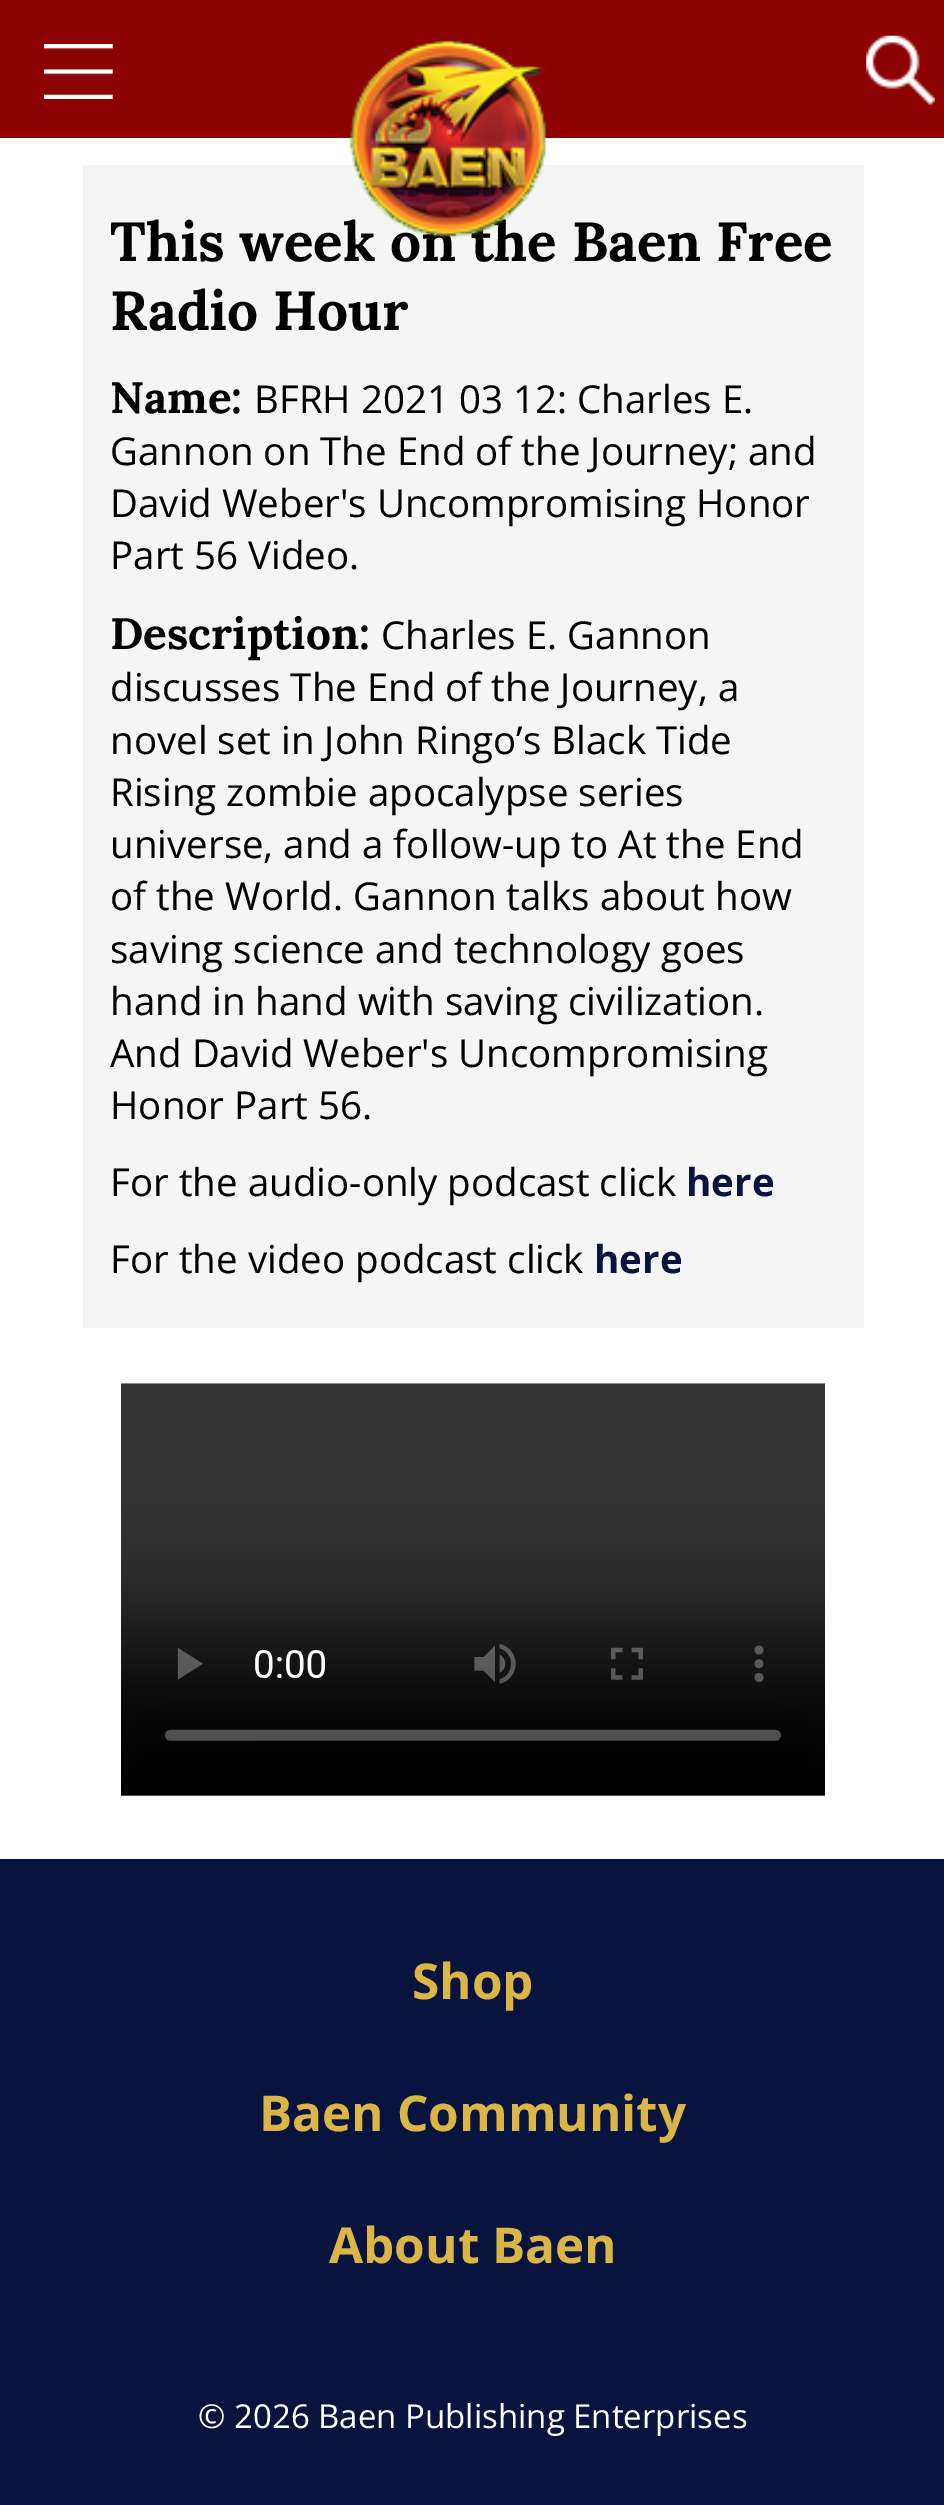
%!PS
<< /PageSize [944 2505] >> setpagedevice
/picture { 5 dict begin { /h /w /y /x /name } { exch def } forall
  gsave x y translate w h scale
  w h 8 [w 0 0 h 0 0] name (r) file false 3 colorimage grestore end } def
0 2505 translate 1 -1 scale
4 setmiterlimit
1 setgray
0 0 944 2505 rectfill
0.549 0.008 0.008 setrgbcolor
0 0 944 138 rectfill
(img1.rgb) 44 44 69 55 picture
0.961 setgray
83 165 781 1163 rectfill
/Lora-Bold [55 0 0 -55 0 0] selectfont
0 setgray
110 261 moveto (This week on the Baen Free) show
(img2.rgb) 349 40 197 199 picture
(img3.rgb) 866 35 69 70 picture
110 330 moveto (Radio Hour) show
/Lora-Bold [44 0 0 -44 0 0] selectfont
110 413 moveto (Name:) show
/OpenSans-Regular [38.5 0 0 -38.5 0 0] selectfont
254 413 moveto (BFRH 2021 03 12: Charles E.) show
110 465 moveto (Gannon on The End of the Journey; and) show
110 517 moveto (David Weber's Uncompromising Honor) show
110 569 moveto (Part 56 Video.) show
/Lora-Bold [44 0 0 -44 0 0] selectfont
110 649 moveto (Description:) show
/OpenSans-Regular [38.5 0 0 -38.5 0 0] selectfont
381 649 moveto (Charles E. Gannon) show
110 701 moveto (discusses The End of the Journey, a) show
110 754 moveto (novel set in John Ringo’s Black Tide) show
110 806 moveto (Rising zombie apocalypse series) show
110 858 moveto (universe, and a follow-up to At the End) show
110 910 moveto (of the World. Gannon talks about how) show
110 963 moveto (saving science and technology goes) show
110 1015 moveto (hand in hand with saving civilization.) show
110 1067 moveto (And David Weber's Uncompromising) show
110 1119 moveto (Honor Part 56.) show
110 1196 moveto (For the audio-only podcast click) show
/OpenSans-Bold [38.5 0 0 -38.5 0 0] selectfont
0.031 0.078 0.243 setrgbcolor
686 1196 moveto (here) show
/OpenSans-Regular [38.5 0 0 -38.5 0 0] selectfont
0 setgray
110 1273 moveto (For the video podcast click) show
/OpenSans-Bold [38.5 0 0 -38.5 0 0] selectfont
0.031 0.078 0.243 setrgbcolor
594 1273 moveto (here) show
(img4.rgb) 121 1383 704 413 picture
0 1859 944 646 rectfill
/OpenSans-Bold [49.5 0 0 -49.5 0 0] selectfont
0.863 0.71 0.278 setrgbcolor
412 1999 moveto (Shop) show
259 2131 moveto (Baen Community) show
329 2263 moveto (About Baen) show
/OpenSans-Regular [33 0 0 -33 0 0] selectfont
1 setgray
198 2428 moveto (© 2026 Baen Publishing Enterprises) show
showpage
